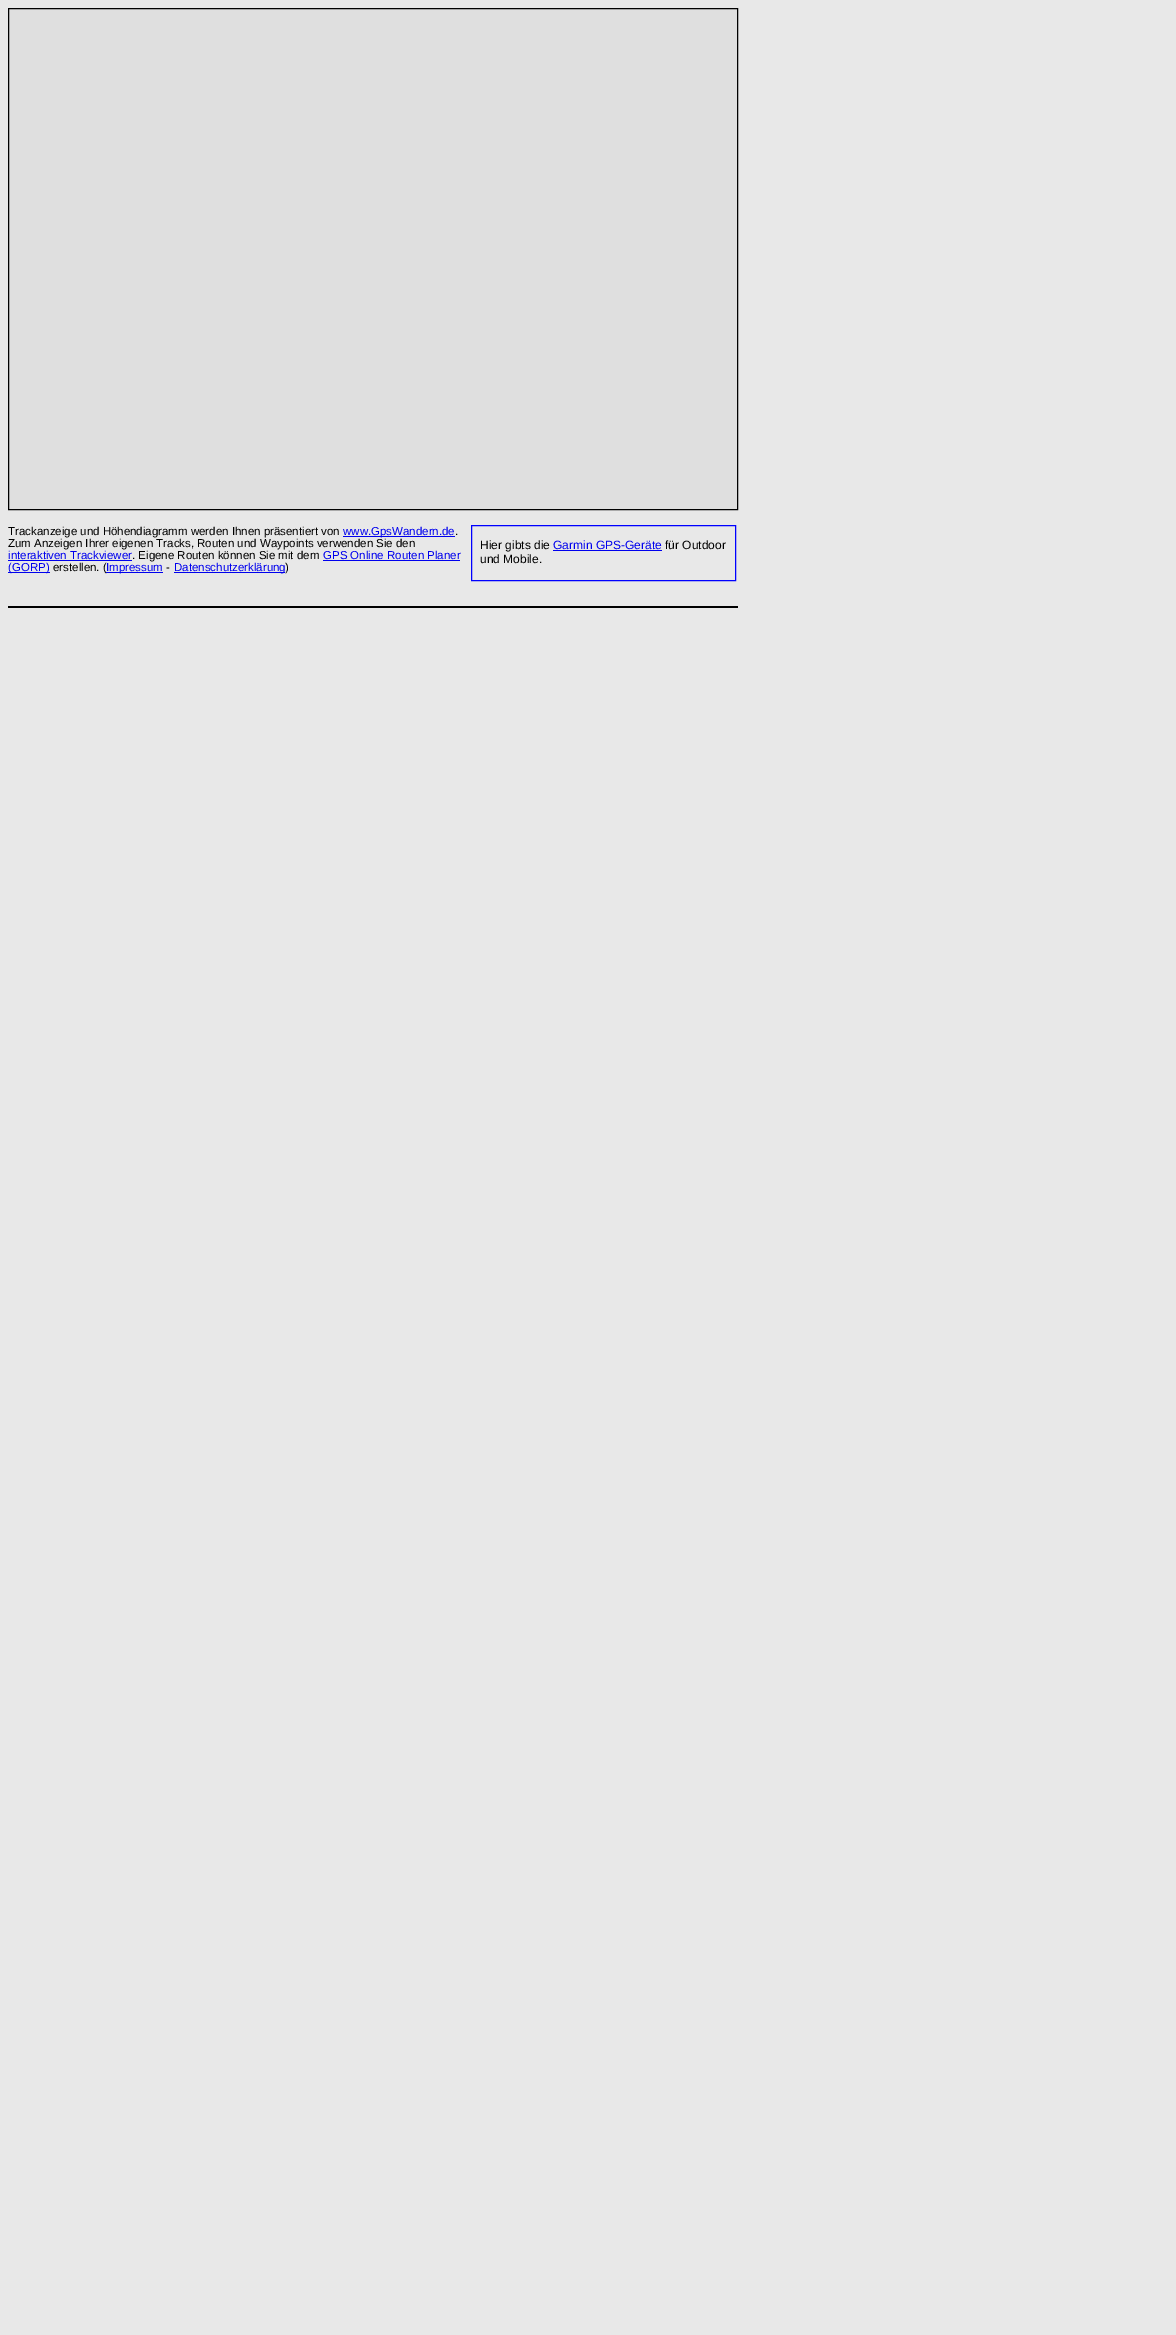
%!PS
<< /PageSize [1176 2335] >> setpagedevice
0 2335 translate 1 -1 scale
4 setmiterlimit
0.91 setgray
0 0 1176 2335 rectfill
0.875 setgray
newpath 8.5 8.5 moveto 737.5 8.5 lineto 737.5 509.5 lineto 8.5 509.5 lineto closepath gsave fill grestore
0 setgray
stroke
/LiberationSans-Regular [11.5 0 0 -11.5 0 0] selectfont
8 535 moveto (Trackanzeige und Höhendiagramm werden Ihnen präsentiert von) show
0 0 0.933 setrgbcolor
343 536 112 1 rectfill
343 535 moveto (www.GpsWandern.de) show
0 setgray
455 535 moveto (.) show
8 547 moveto (Zum Anzeigen Ihrer eigenen Tracks, Routen und Waypoints verwenden Sie den) show
0 0 0.933 setrgbcolor
8 559 moveto (interaktiven Trackviewer) show
8 560 124 1 rectfill
0 setgray
132 559 moveto (. Eigene Routen können Sie mit dem) show
0 0 0.933 setrgbcolor
323 559 moveto (GPS Online Routen Planer) show
323 560 137 1 rectfill
8 572 42 1 rectfill
8 571 moveto (\(GORP\)) show
0 setgray
53 571 moveto (erstellen. \() show
0 0 0.933 setrgbcolor
106 572 57 1 rectfill
106 571 moveto (Impressum) show
0 setgray
166 571 moveto (-) show
0 0 0.933 setrgbcolor
174 572 111 1 rectfill
174 571 moveto (Datenschutzerklärung) show
0 setgray
285 571 moveto (\)) show
0 0 1 setrgbcolor
471.5 525.5 264 55 rectstroke
/LiberationSans-Regular [12 0 0 -12 0 0] selectfont
0 setgray
480 549 moveto (Hier gibts die) show
0 0 0.933 setrgbcolor
553 549 moveto (Garmin GPS-Geräte) show
553 550 109 1 rectfill
0 setgray
665 549 moveto (für Outdoor) show
480 563 moveto (und Mobile.) show
8 606 730 2 rectfill
showpage
